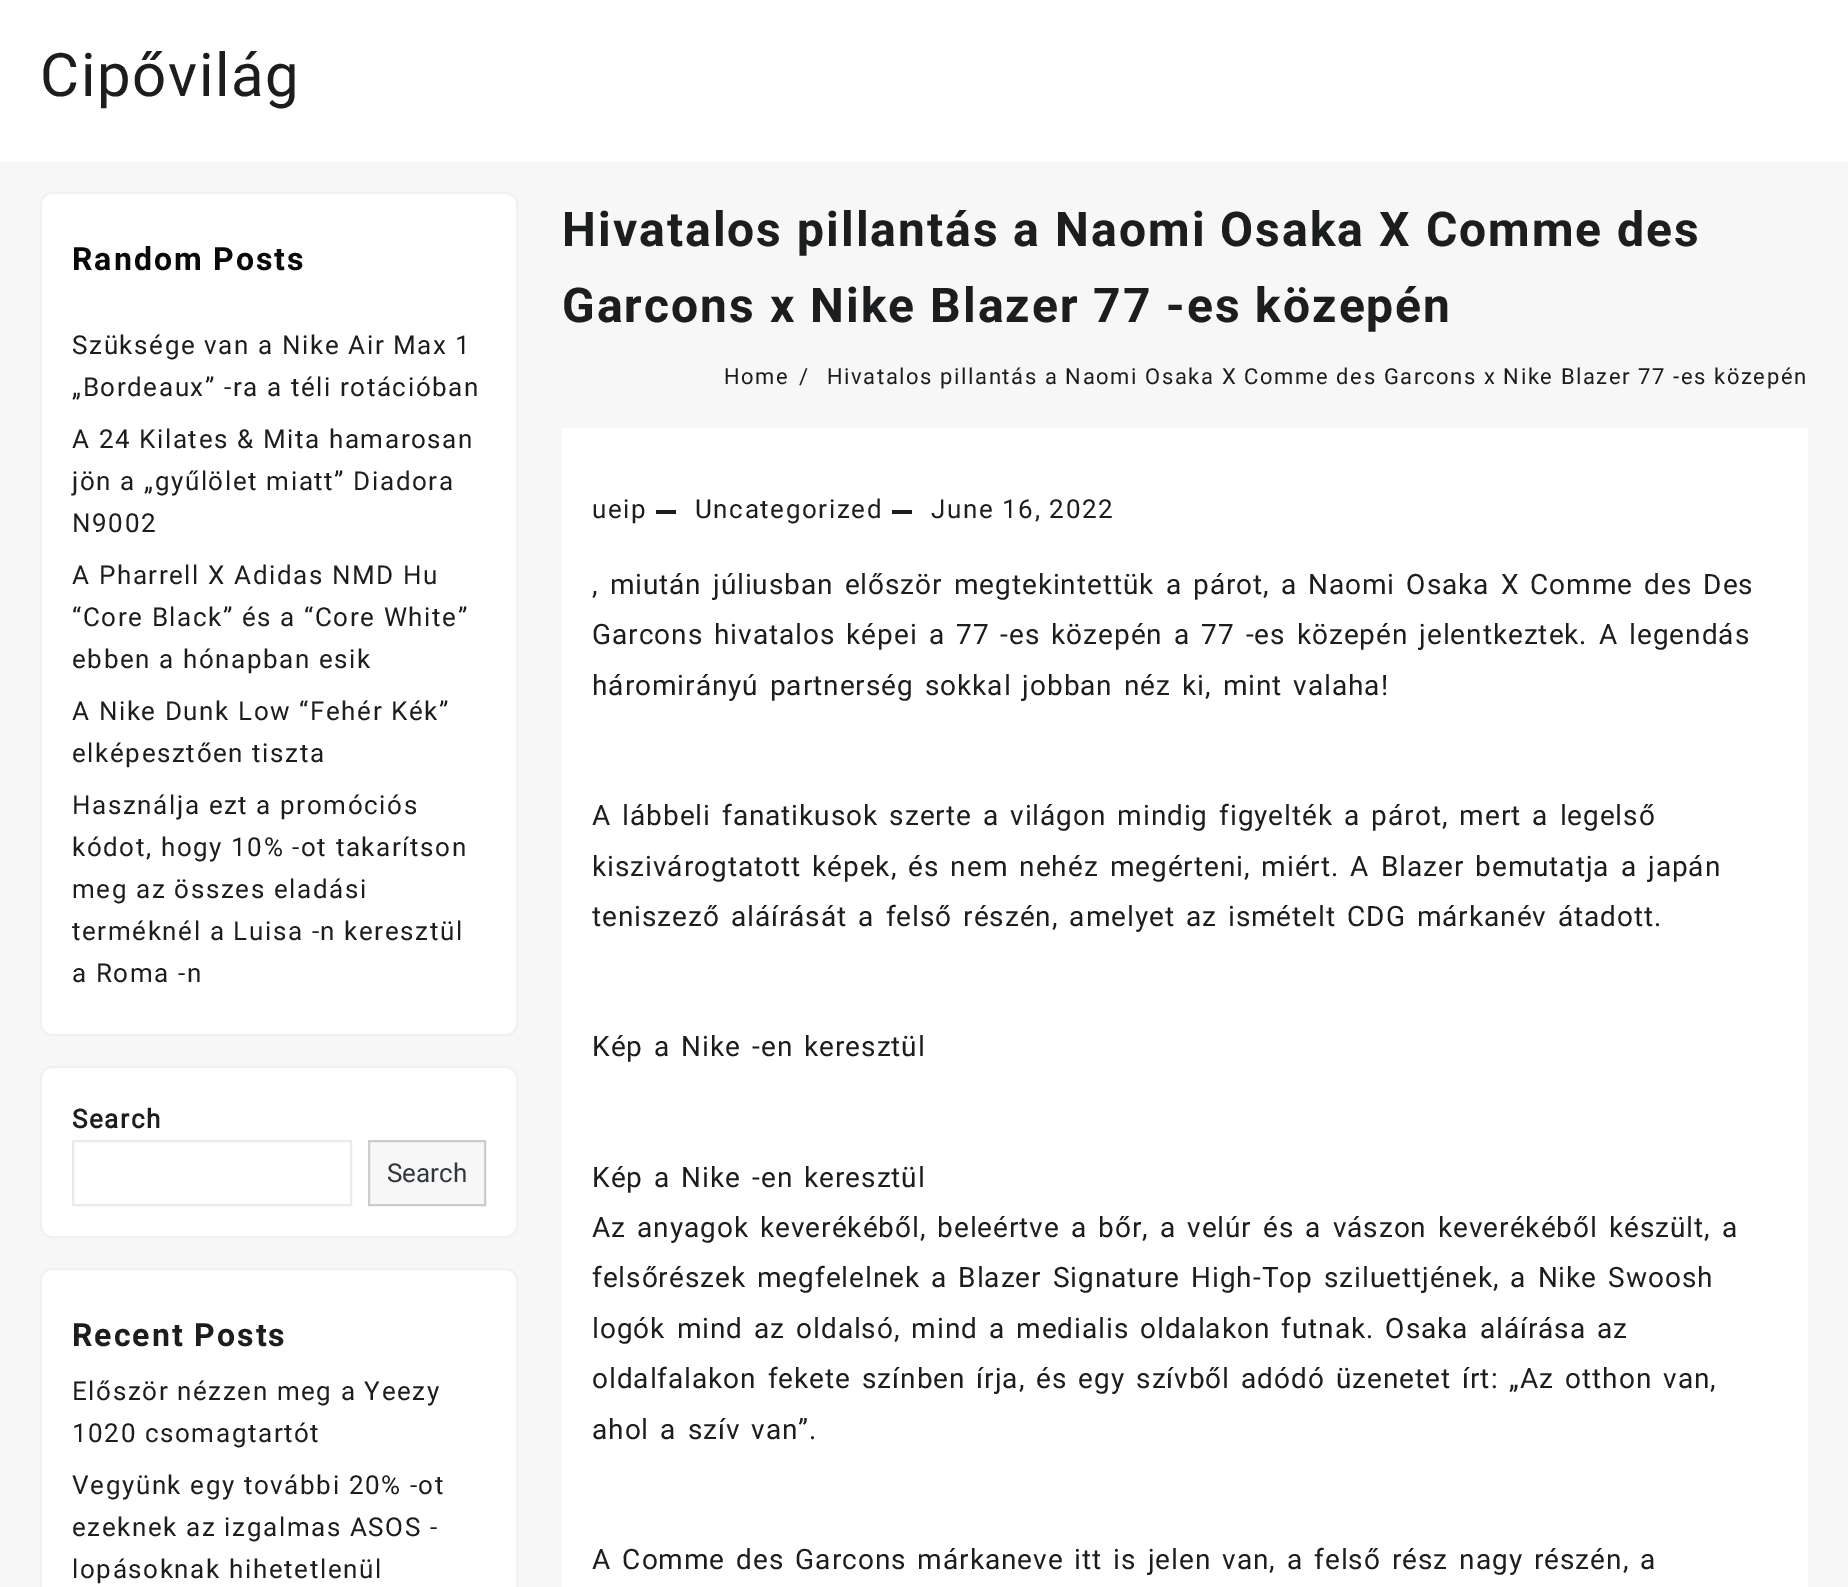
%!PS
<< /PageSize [1848 1587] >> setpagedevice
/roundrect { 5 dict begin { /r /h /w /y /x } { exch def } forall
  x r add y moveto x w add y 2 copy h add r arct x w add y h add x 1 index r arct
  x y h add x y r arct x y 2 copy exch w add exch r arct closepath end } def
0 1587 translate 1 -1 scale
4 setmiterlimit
0.969 setgray
0 0 1848 1587 rectfill
1 setgray
0 0 1848 162 rectfill
/Roboto-Regular [60 0 0 -60 0 0] selectfont
0.11 0.114 0.118 setrgbcolor
40 96 moveto 1.6 0 (Cipővilág) ashow
1 setgray
41 193 476 842 11 roundrect gsave fill grestore
0.945 setgray
2 setlinewidth
stroke
/Roboto-Bold [32 0 0 -32 0 0] selectfont
0.035 setgray
72 270 moveto 2 0 (Random Posts) ashow
/Roboto-Regular [26 0 0 -26 0 0] selectfont
0.11 0.114 0.118 setrgbcolor
72 354 moveto 1.6 0 (Szüksége van a Nike Air Max 1) ashow
72 396 moveto 1.6 0 („Bordeaux” -ra a téli rotációban) ashow
72 448 moveto 1.6 0 (A 24 Kilates & Mita hamarosan) ashow
72 490 moveto 1.6 0 (jön a „gyűlölet miatt” Diadora) ashow
72 532 moveto 1.6 0 (N9002) ashow
72 584 moveto 1.6 0 (A Pharrell X Adidas NMD Hu) ashow
72 626 moveto 1.6 0 (“Core Black” és a “Core White”) ashow
72 668 moveto 1.6 0 (ebben a hónapban esik) ashow
72 720 moveto 1.6 0 (A Nike Dunk Low “Fehér Kék”) ashow
72 762 moveto 1.6 0 (elképesztően tiszta) ashow
72 814 moveto 1.6 0 (Használja ezt a promóciós) ashow
72 856 moveto 1.6 0 (kódot, hogy 10% -ot takarítson) ashow
72 898 moveto 1.6 0 (meg az összes eladási) ashow
72 940 moveto 1.6 0 (terméknél a Luisa -n keresztül) ashow
72 982 moveto 1.6 0 (a Roma -n) ashow
1 setgray
41 1067 476 170 11 roundrect gsave fill grestore
0.945 setgray
stroke
/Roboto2-Bold [26 0 0 -26 0 0] selectfont
0.11 0.114 0.118 setrgbcolor
72 1128 moveto 1.6 0 (Search) ashow
0.918 setgray
73 1141 278 64 rectstroke
0.969 setgray
newpath 369 1141 moveto 485 1141 lineto 485 1205 lineto 369 1205 lineto closepath gsave fill grestore
0.8 setgray
stroke
/Roboto-Regular [26 0 0 -26 0 0] selectfont
0.196 0.216 0.235 setrgbcolor
387 1182 moveto (Search) show
1 setgray
41 1269 476 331 11 roundrect gsave fill grestore
0.945 setgray
stroke
/Roboto-Bold [32 0 0 -32 0 0] selectfont
0.11 0.114 0.118 setrgbcolor
72 1346 moveto 2 0 (Recent Posts) ashow
/Roboto-Regular [26 0 0 -26 0 0] selectfont
72 1400 moveto 1.6 0 (Először nézzen meg a Yeezy) ashow
72 1442 moveto 1.6 0 (1020 csomagtartót) ashow
72 1494 moveto 1.6 0 (Vegyünk egy további 20% -ot) ashow
72 1536 moveto 1.6 0 (ezeknek az izgalmas ASOS -) ashow
72 1578 moveto 1.6 0 (lopásoknak hihetetlenül) ashow
/Roboto-Bold [48 0 0 -48 0 0] selectfont
562 246 moveto 2 0 (Hivatalos pillantás a Naomi Osaka X Comme des) ashow
562 322 moveto 2 0 (Garcons x Nike Blazer 77 -es közepén) ashow
/Roboto-Regular [22 0 0 -22 0 0] selectfont
724 384 moveto 1.6 0 (Home) ashow
799 384 moveto 1.6 0 (/) ashow
827 384 moveto 1.6 0 (Hivatalos pillantás a Naomi Osaka X Comme des Garcons x Nike Blazer 77 -es közepén) ashow
1 setgray
562 428 1246 1159 rectfill
/Roboto-Regular [26 0 0 -26 0 0] selectfont
0.11 0.114 0.118 setrgbcolor
592 518 moveto 1.6 0 (ueip) ashow
656 510 20 4 rectfill
695 518 moveto 1.6 0 (Uncategorized) ashow
892 510 20 4 rectfill
931 518 moveto 1.6 0 (June 16, 2022) ashow
/Roboto-Regular [28 0 0 -28 0 0] selectfont
592 594 moveto 3.25 0 32 0.95 0 (, miután júliusban először megtekintettük a párot, a Naomi Osaka X Comme des Des) awidthshow
592 644 moveto 3.25 0 32 0.95 0 (Garcons hivatalos képei a 77 -es közepén a 77 -es közepén jelentkeztek. A legendás) awidthshow
592 695 moveto 3.25 0 32 0.95 0 (háromirányú partnerség sokkal jobban néz ki, mint valaha!) awidthshow
592 825 moveto 3.25 0 32 0.95 0 (A lábbeli fanatikusok szerte a világon mindig figyelték a párot, mert a legelső) awidthshow
592 876 moveto 3.25 0 32 0.95 0 (kiszivárogtatott képek, és nem nehéz megérteni, miért. A Blazer bemutatja a japán) awidthshow
592 926 moveto 3.25 0 32 0.95 0 (teniszező aláírását a felső részén, amelyet az ismételt CDG márkanév átadott.) awidthshow
592 1056 moveto 3.25 0 32 0.95 0 (Kép a Nike -en keresztül) awidthshow
592 1187 moveto 3.25 0 32 0.95 0 (Kép a Nike -en keresztül) awidthshow
592 1237 moveto 3.25 0 32 0.95 0 (Az anyagok keverékéből, beleértve a bőr, a velúr és a vászon keverékéből készült, a) awidthshow
592 1287 moveto 3.25 0 32 0.95 0 (felsőrészek megfelelnek a Blazer Signature High-Top sziluettjének, a Nike Swoosh) awidthshow
592 1338 moveto 3.25 0 32 0.95 0 (logók mind az oldalsó, mind a medialis oldalakon futnak. Osaka aláírása az) awidthshow
592 1388 moveto 3.25 0 32 0.95 0 (oldalfalakon fekete színben írja, és egy szívből adódó üzenetet írt: „Az otthon van,) awidthshow
592 1439 moveto 3.25 0 32 0.95 0 (ahol a szív van”.) awidthshow
592 1569 moveto 3.25 0 32 0.95 0 (A Comme des Garcons márkaneve itt is jelen van, a felső rész nagy részén, a) awidthshow
showpage
